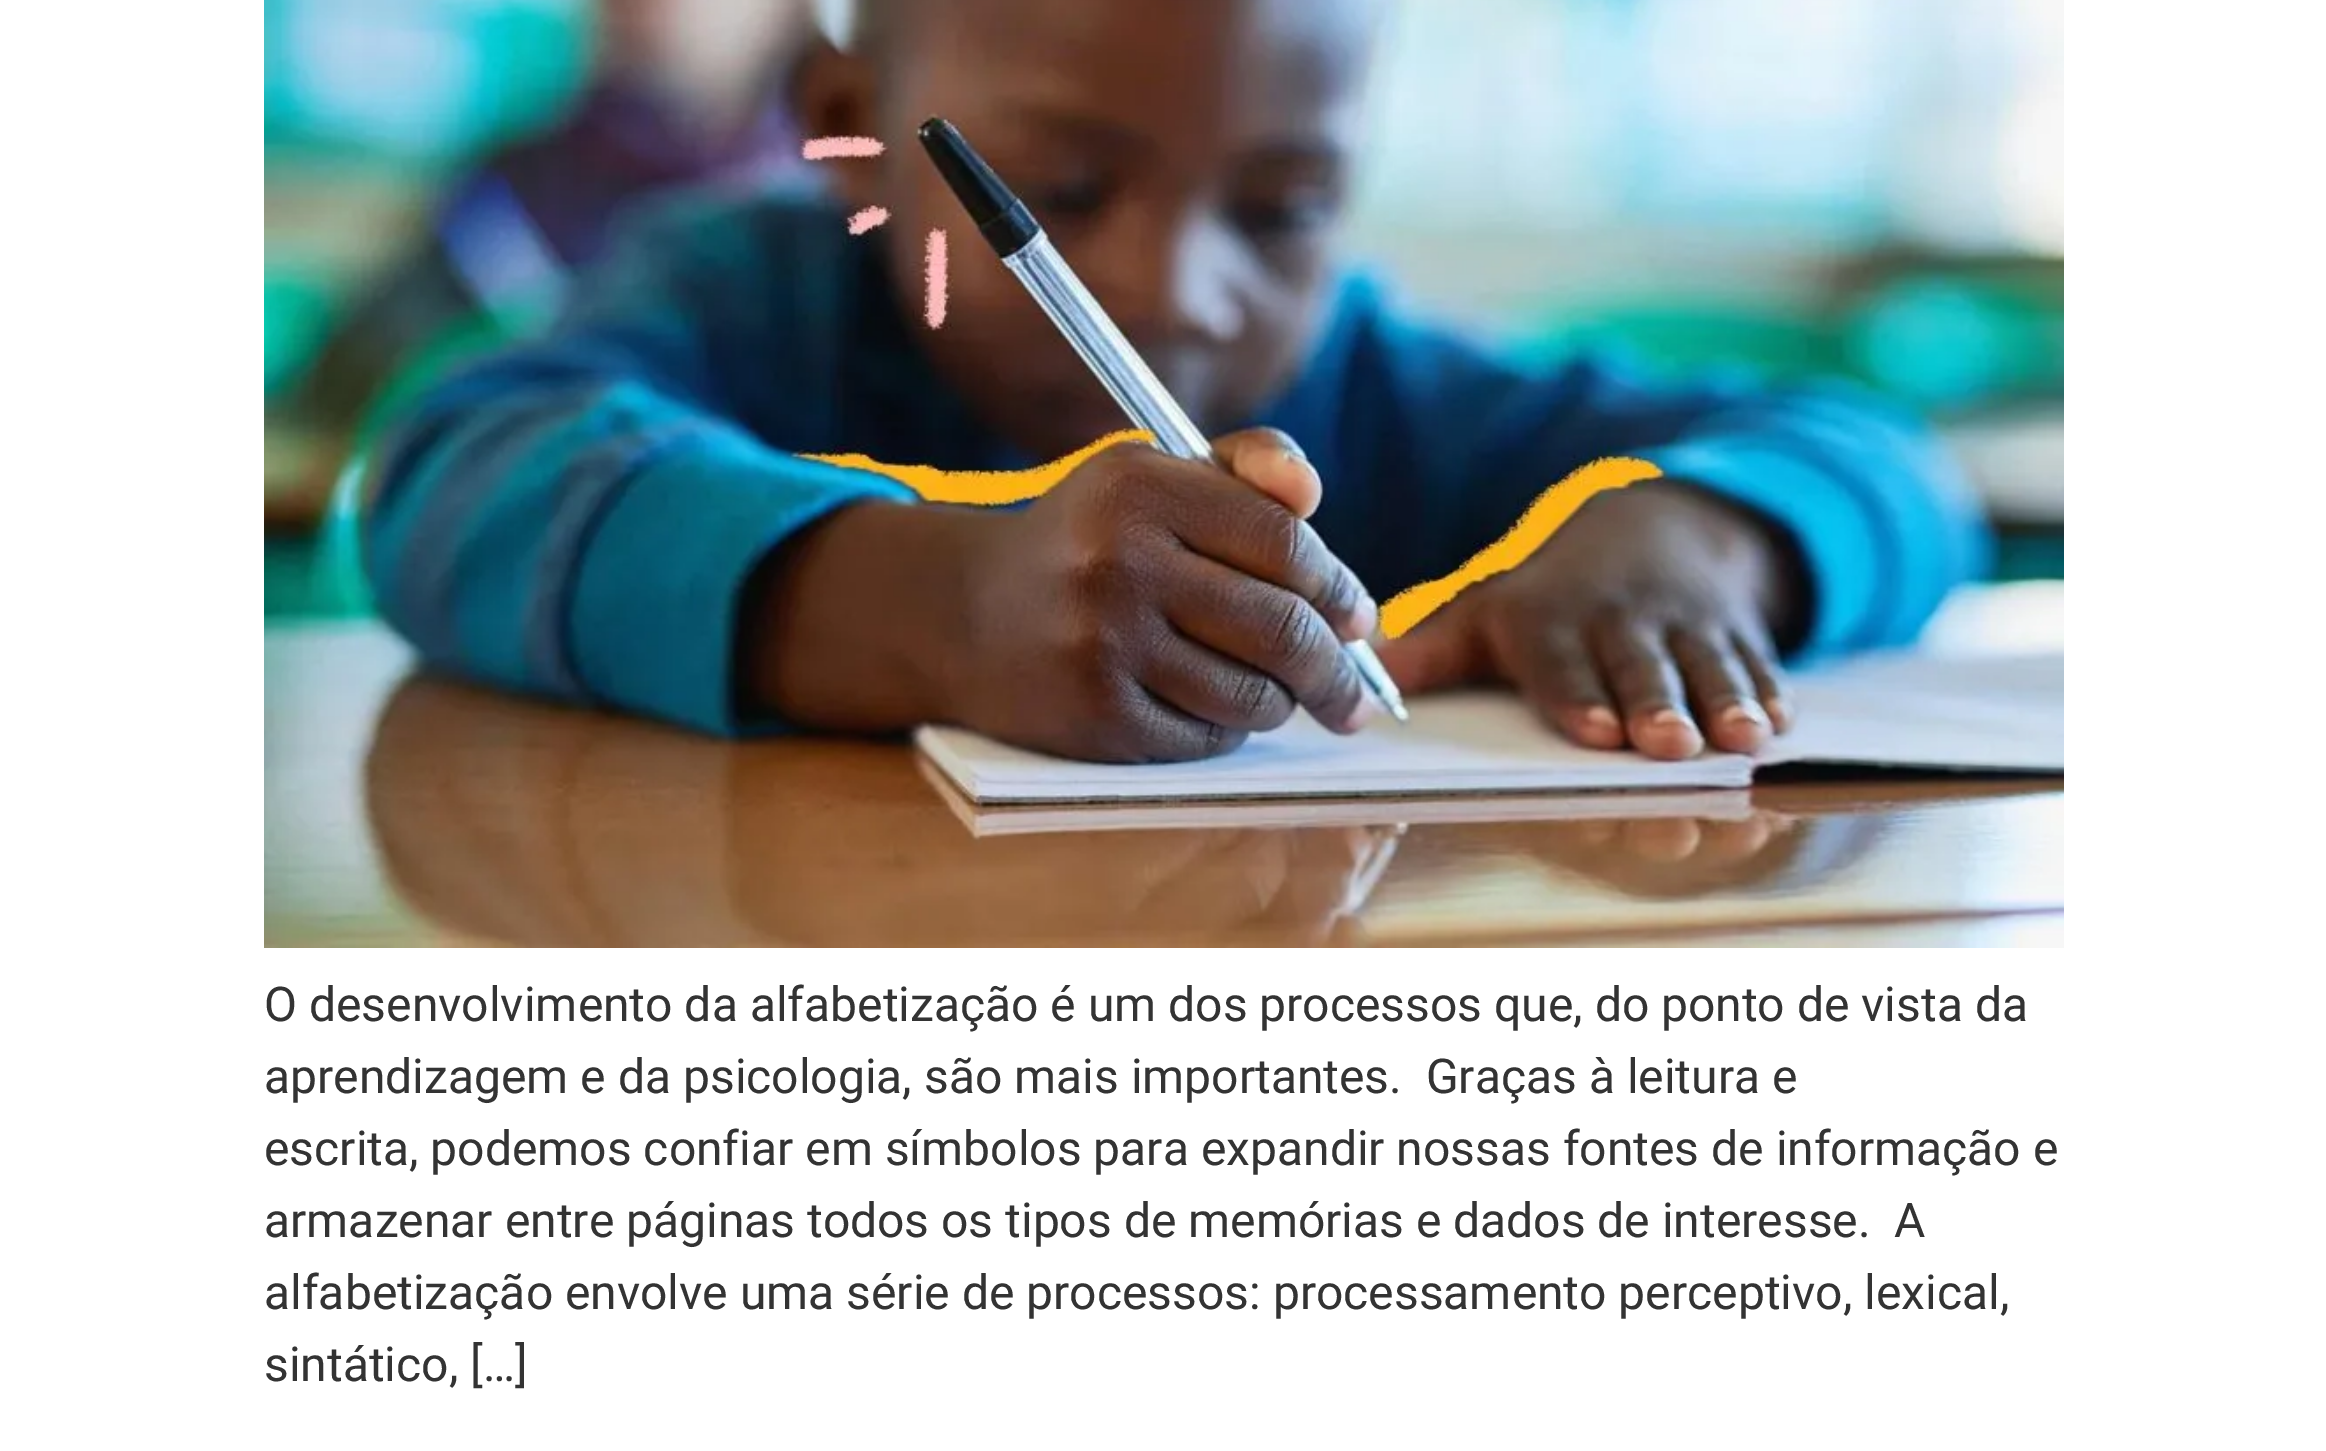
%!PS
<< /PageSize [2326 1451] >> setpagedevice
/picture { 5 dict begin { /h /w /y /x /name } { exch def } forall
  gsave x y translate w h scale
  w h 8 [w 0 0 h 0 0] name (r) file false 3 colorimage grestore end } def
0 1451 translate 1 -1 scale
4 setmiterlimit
1 setgray
0 0 2326 1451 rectfill
(img1.rgb) 264 0 1800 948 picture
/Roboto-Regular [48 0 0 -48 0 0] selectfont
0.2 setgray
264 1021 moveto (O desenvolvimento da alfabetização é um dos processos que, do ponto de vista da) show
264 1093 moveto (aprendizagem e da psicologia, são mais importantes.  Graças à leitura e) show
264 1165 moveto (escrita, podemos confiar em símbolos para expandir nossas fontes de informação e) show
264 1237 moveto (armazenar entre páginas todos os tipos de memórias e dados de interesse.  A) show
264 1309 moveto (alfabetização envolve uma série de processos: processamento perceptivo, lexical,) show
264 1381 moveto (sintático, […]) show
showpage
